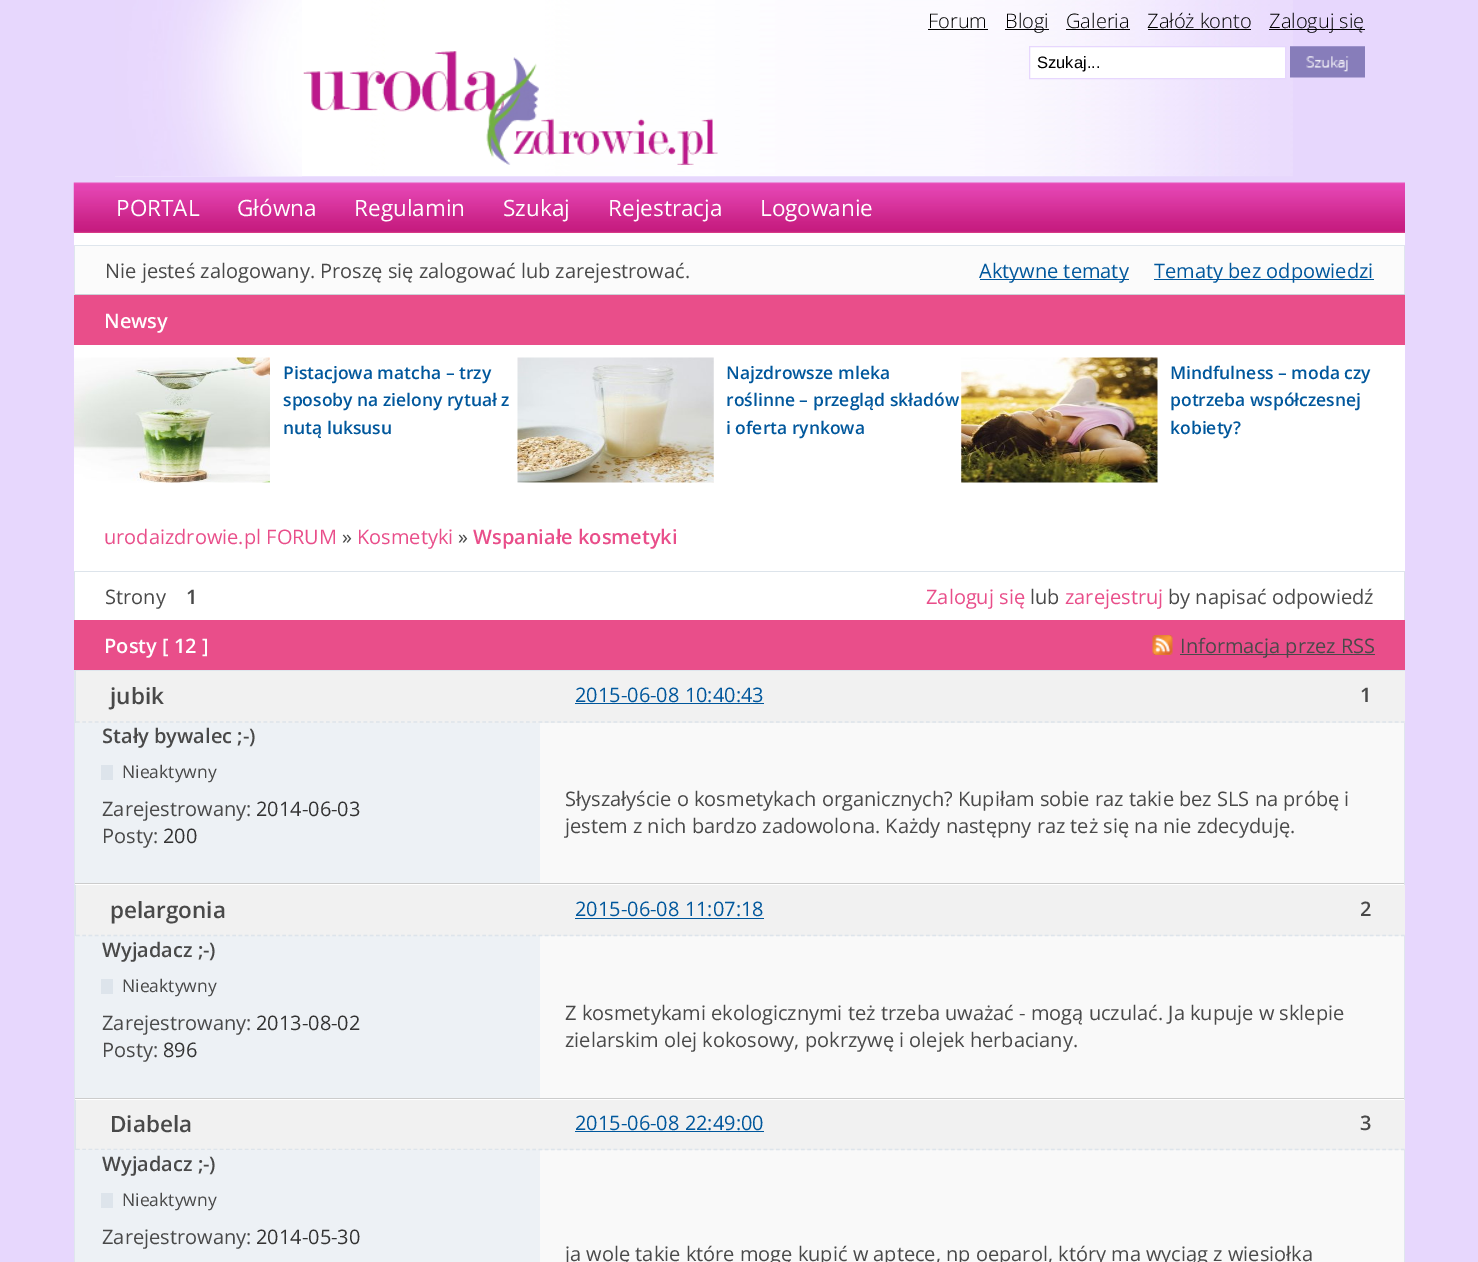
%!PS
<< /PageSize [1478 1262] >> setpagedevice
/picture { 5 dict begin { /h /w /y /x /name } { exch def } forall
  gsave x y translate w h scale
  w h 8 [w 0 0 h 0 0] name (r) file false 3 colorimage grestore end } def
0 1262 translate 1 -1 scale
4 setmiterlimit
0.906 0.843 0.992 setrgbcolor
0 0 1478 1262 rectfill
(img2.rgb) 115 0 1178 177 picture
(img1.rgb) 115 0 187 177 picture
/OpenSans-Light [20 0 0 -20 0 0] selectfont
0 setgray
928 28 moveto (Forum) show
928 29 60 1 rectfill
1005 29 44 1 rectfill
1005 28 moveto (Blogi) show
1066 28 moveto (Galeria) show
1066 29 64 1 rectfill
1147 28 moveto (Załóż konto) show
1148 29 103 1 rectfill
1269 29 96 1 rectfill
1269 28 moveto (Zaloguj się) show
(img3.rgb) 303 51 415 114 picture
1 setgray
newpath 1029.5 46.5 moveto 1285.5 46.5 lineto 1285.5 78.5 lineto 1029.5 78.5 lineto closepath gsave fill grestore
0.906 0.843 0.996 setrgbcolor
stroke
/LiberationSans-Regular [16.5 0 0 -16.5 0 0] selectfont
0 setgray
1037 68 moveto (Szukaj...) show
(img4.rgb) 1290 46 75 32 picture
1 setgray
74 233 1331 387 rectfill
0.914 0.306 0.541 setrgbcolor
74 232 1331 1 rectfill
(img5.rgb) 73 182 1332 51 picture
/OpenSans-Regular [22.5 0 0 -22.5 0 0] selectfont
1 setgray
116 216 moveto (PORTAL) show
237 216 moveto (Główna) show
354 216 moveto (Regulamin) show
503 216 moveto (Szukaj) show
608 216 moveto (Rejestracja) show
760 216 moveto (Logowanie) show
0.984 setgray
75 246 1329 48 rectfill
0.875 0.902 0.929 setrgbcolor
74 245 1331 1 rectfill
1404 245 1 50 rectfill
0.796 0.82 0.847 setrgbcolor
74 294 1331 1 rectfill
0.875 0.902 0.929 setrgbcolor
74 245 1 50 rectfill
/OpenSans-Regular [20 0 0 -20 0 0] selectfont
0.286 setgray
105 278 moveto (Nie jesteś zalogowany. Proszę się zalogować lub zarejestrować.) show
0 0.341 0.612 setrgbcolor
980 279 149 1 rectfill
979 278 moveto (Aktywne tematy) show
1154 279 220 1 rectfill
1154 278 moveto (Tematy bez odpowiedzi) show
0.914 0.306 0.541 setrgbcolor
74 295 1331 50 rectfill
/OpenSans-SemiBold [20 0 0 -20 0 0] selectfont
1 setgray
104 328 moveto (Newsy) show
(img6.rgb) 74 357 196 126 picture
/OpenSans-SemiBold [17.5 0 0 -17.5 0 0] selectfont
0 0.341 0.612 setrgbcolor
283 379 moveto (Pistacjowa matcha – trzy) show
283 406 moveto (sposoby na zielony rytuał z) show
283 434 moveto (nutą luksusu) show
(img7.rgb) 517 357 197 126 picture
726 379 moveto (Najzdrowsze mleka) show
726 406 moveto (roślinne – przegląd składów) show
726 434 moveto (i oferta rynkowa) show
(img8.rgb) 961 357 197 126 picture
1170 379 moveto (Mindfulness – moda czy) show
1170 406 moveto (potrzeba współczesnej) show
1170 434 moveto (kobiety?) show
/OpenSans-Regular [20 0 0 -20 0 0] selectfont
0.914 0.306 0.541 setrgbcolor
104 544 moveto (urodaizdrowie.pl FORUM) show
0.286 setgray
342 544 moveto (») show
0.914 0.306 0.541 setrgbcolor
357 544 moveto (Kosmetyki) show
0.286 setgray
458 544 moveto (») show
/OpenSans-SemiBold [20 0 0 -20 0 0] selectfont
0.914 0.306 0.541 setrgbcolor
473 544 moveto (Wspaniałe kosmetyki) show
0.867 0.894 0.922 setrgbcolor
74 571 1331 1 rectfill
1404 571 1 49 rectfill
74 571 1 49 rectfill
/OpenSans-Regular [20 0 0 -20 0 0] selectfont
0.286 setgray
105 604 moveto (Strony) show
/OpenSans-SemiBold [20 0 0 -20 0 0] selectfont
186 604 moveto (1) show
/OpenSans-Regular [20 0 0 -20 0 0] selectfont
0.914 0.306 0.541 setrgbcolor
926 604 moveto (Zaloguj się) show
0.286 setgray
1030 604 moveto (lub) show
0.914 0.306 0.541 setrgbcolor
1065 604 moveto (zarejestruj) show
0.286 setgray
1168 604 moveto (by napisać odpowiedź) show
0.914 0.306 0.541 setrgbcolor
74 620 1331 50 rectfill
/OpenSans-SemiBold [20 0 0 -20 0 0] selectfont
1 setgray
104 653 moveto (Posty [ 12 ]) show
(img9.rgb) 1152 635 21 20 picture
0.286 setgray
1180 654 195 1 rectfill
/OpenSans-Regular [20 0 0 -20 0 0] selectfont
1180 653 moveto (Informacja przez RSS) show
0.875 0.902 0.929 setrgbcolor
74 670 1331 1 rectfill
1404 670 1 592 rectfill
74 670 1 592 rectfill
0.929 0.945 0.961 setrgbcolor
75 723 465 160 rectfill
0.976 setgray
540 723 864 160 rectfill
0.8 setgray
75 883 1329 1 rectfill
0.867 0.894 0.922 setrgbcolor
75 671 1 52 rectfill
0.945 setgray
76 671 1329 52 rectfill
0.867 0.894 0.922 setrgbcolor
1.2 setlinewidth
[3.75 2.5] 0 setdash
newpath 76 722 moveto 1405 722 lineto stroke
/OpenSans-SemiBold [22.5 0 0 -22.5 0 0] selectfont
0.286 setgray
110 704 moveto (jubik) show
/OpenSans-Regular [20 0 0 -20 0 0] selectfont
0 0.341 0.612 setrgbcolor
575 702 moveto (2015-06-08 10:40:43) show
575 703 189 1 rectfill
/OpenSans-SemiBold [20 0 0 -20 0 0] selectfont
0.286 setgray
1360 702 moveto (1) show
102 743 moveto (Stały bywalec ;-\)) show
0.867 0.894 0.922 setrgbcolor
101 765 12 15 rectfill
/OpenSans-Regular [17.5 0 0 -17.5 0 0] selectfont
0.286 setgray
122 778 moveto (Nieaktywny) show
/OpenSans-Regular [20 0 0 -20 0 0] selectfont
102 816 moveto (Zarejestrowany:) show
0.2 setgray
256 816 moveto (2014-06-03) show
0.286 setgray
102 843 moveto (Posty:) show
0.2 setgray
163 843 moveto (200) show
0.286 setgray
565 806 moveto (Słyszałyście o kosmetykach organicznych? Kupiłam sobie raz takie bez SLS na próbę i) show
565 833 moveto (jestem z nich bardzo zadowolona. Każdy następny raz też się na nie zdecyduję.) show
0.929 0.945 0.961 setrgbcolor
75 936 465 162 rectfill
0.976 setgray
540 936 864 162 rectfill
1 setgray
75 884 1329 1 rectfill
0.8 setgray
75 1098 1329 1 rectfill
0.867 0.894 0.922 setrgbcolor
75 885 1 51 rectfill
0.945 setgray
76 885 1329 51 rectfill
0.867 0.894 0.922 setrgbcolor
newpath 76 935.5 moveto 1405 935.5 lineto stroke
/OpenSans-SemiBold [22.5 0 0 -22.5 0 0] selectfont
0.286 setgray
110 918 moveto (pelargonia) show
/OpenSans-Regular [20 0 0 -20 0 0] selectfont
0 0.341 0.612 setrgbcolor
575 916 moveto (2015-06-08 11:07:18) show
575 918 189 1 rectfill
/OpenSans-SemiBold [20 0 0 -20 0 0] selectfont
0.286 setgray
1360 916 moveto (2) show
102 957 moveto (Wyjadacz ;-\)) show
0.867 0.894 0.922 setrgbcolor
101 979 12 15 rectfill
/OpenSans-Regular [17.5 0 0 -17.5 0 0] selectfont
0.286 setgray
122 992 moveto (Nieaktywny) show
/OpenSans-Regular [20 0 0 -20 0 0] selectfont
102 1030 moveto (Zarejestrowany:) show
0.2 setgray
256 1030 moveto (2013-08-02) show
0.286 setgray
102 1057 moveto (Posty:) show
0.2 setgray
163 1057 moveto (896) show
0.286 setgray
565 1020 moveto (Z kosmetykami ekologicznymi też trzeba uważać - mogą uczulać. Ja kupuje w sklepie) show
565 1047 moveto (zielarskim olej kokosowy, pokrzywę i olejek herbaciany.) show
0.929 0.945 0.961 setrgbcolor
526 1150 14 112 rectfill
0.976 setgray
540 1150 864 112 rectfill
1 setgray
75 1099 1329 1 rectfill
0.867 0.894 0.922 setrgbcolor
75 1100 1 50 rectfill
0.945 setgray
76 1100 1329 50 rectfill
0.867 0.894 0.922 setrgbcolor
newpath 76 1149.5 moveto 1405 1149.5 lineto stroke
/OpenSans-SemiBold [22.5 0 0 -22.5 0 0] selectfont
0.286 setgray
110 1132 moveto (Diabela) show
/OpenSans-Regular [20 0 0 -20 0 0] selectfont
0 0.341 0.612 setrgbcolor
575 1130 moveto (2015-06-08 22:49:00) show
575 1131 189 1 rectfill
/OpenSans-SemiBold [20 0 0 -20 0 0] selectfont
0.286 setgray
1360 1130 moveto (3) show
0.929 0.945 0.961 setrgbcolor
75 1150 451 112 rectfill
0.286 setgray
102 1171 moveto (Wyjadacz ;-\)) show
0.867 0.894 0.922 setrgbcolor
101 1193 12 15 rectfill
/OpenSans-Regular [17.5 0 0 -17.5 0 0] selectfont
0.286 setgray
122 1206 moveto (Nieaktywny) show
/OpenSans-Regular [20 0 0 -20 0 0] selectfont
102 1244 moveto (Zarejestrowany:) show
0.2 setgray
256 1244 moveto (2014-05-30) show
0.286 setgray
565 1261 moveto (ja wolę takie które mogę kupić w aptece, np oeparol, który ma wyciąg z wiesiołka) show
showpage
